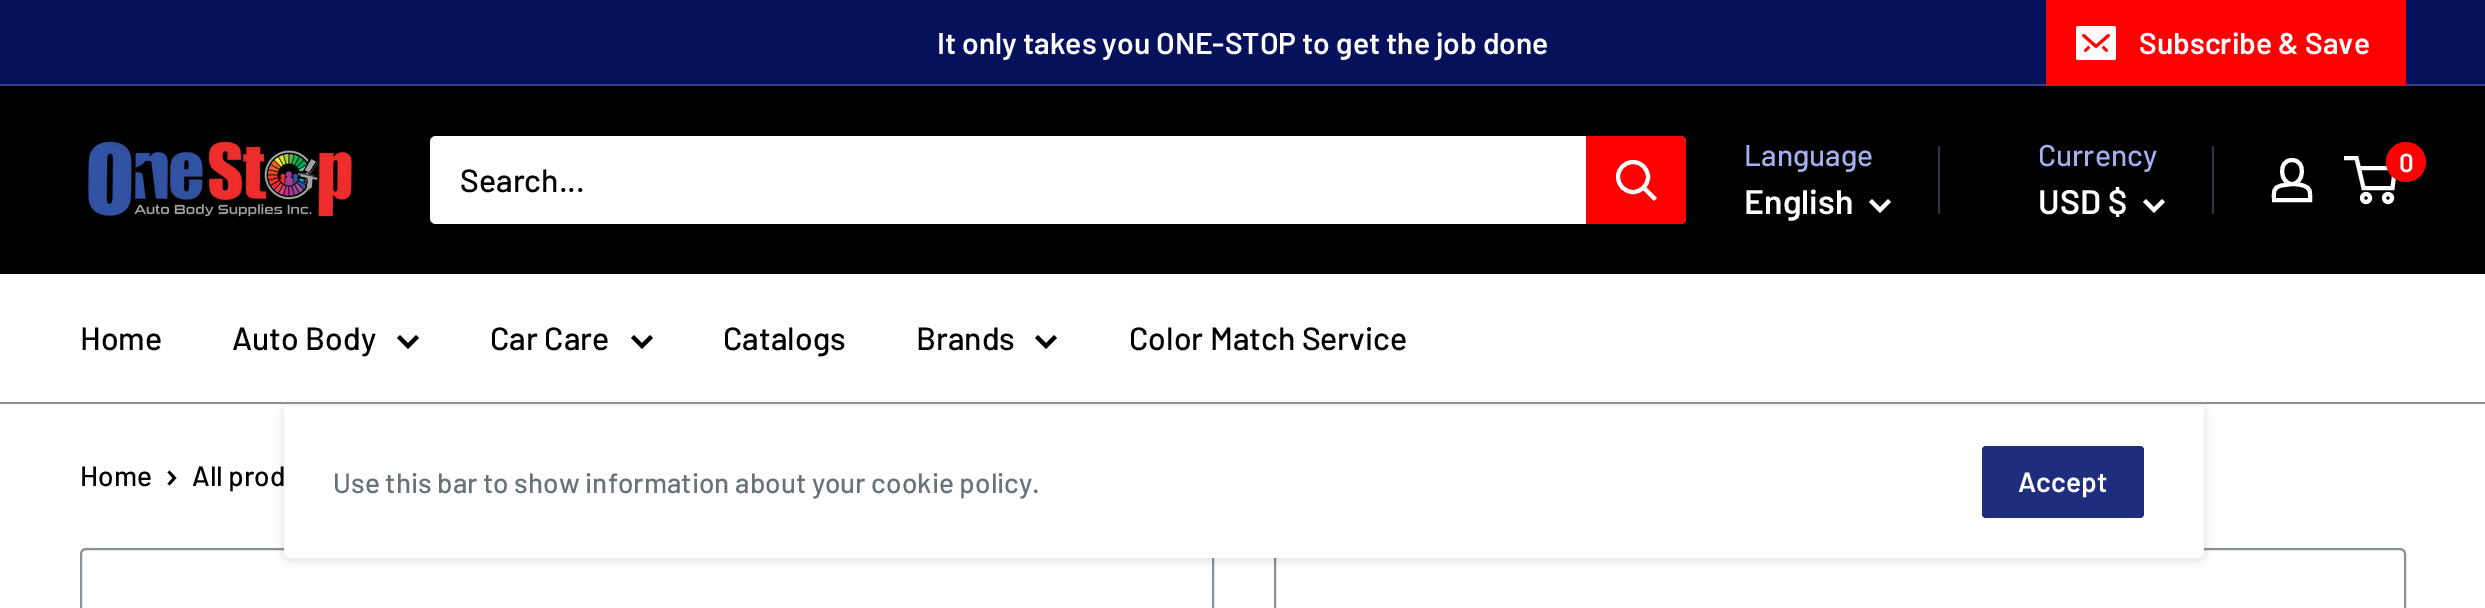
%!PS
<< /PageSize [2485 608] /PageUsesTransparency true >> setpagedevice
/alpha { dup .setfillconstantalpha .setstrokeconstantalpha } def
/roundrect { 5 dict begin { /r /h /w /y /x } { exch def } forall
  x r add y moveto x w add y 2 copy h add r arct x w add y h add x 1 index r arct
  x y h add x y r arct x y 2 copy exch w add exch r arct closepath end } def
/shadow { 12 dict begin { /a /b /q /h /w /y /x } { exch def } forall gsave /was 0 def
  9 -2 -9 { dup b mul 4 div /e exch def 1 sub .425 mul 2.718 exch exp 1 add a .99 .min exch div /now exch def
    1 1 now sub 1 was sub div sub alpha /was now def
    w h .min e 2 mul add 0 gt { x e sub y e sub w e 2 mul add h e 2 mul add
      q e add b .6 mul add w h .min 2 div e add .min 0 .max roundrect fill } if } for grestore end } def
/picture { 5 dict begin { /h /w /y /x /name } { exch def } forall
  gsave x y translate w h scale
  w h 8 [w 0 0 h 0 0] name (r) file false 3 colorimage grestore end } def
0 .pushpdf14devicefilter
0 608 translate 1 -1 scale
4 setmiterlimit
1 setgray
0 0 2485 608 rectfill
0.02 0.067 0.357 setrgbcolor
0 0 2485 84 rectfill
0.204 0.251 0.529 setrgbcolor
0 84 2485 2 rectfill
/Barlow-SemiBold [30 0 0 -30 0 0] selectfont
1 setgray
937 54 moveto (It only takes you ONE-STOP to get the job done) show
1 0 0 setrgbcolor
2046 0 360 86 rectfill
(img1.rgb) 2076 26 40 34 picture
1 setgray
2139 54 moveto (Subscribe & Save) show
0 setgray
0 86 2485 188 rectfill
(img2.rgb) 88 141 264 76 picture
1 setgray
430 136 1256 88 6 roundrect fill
/Barlow-Medium [32 0 0 -32 0 0] selectfont
0 setgray
460 192 moveto (Search...) show
1 0 0 setrgbcolor
newpath 1586 136 moveto 1680 136 lineto 1683.5 136 1686 138.5 1686 142 curveto 1686 218 lineto 1686 221.5 1683.5 224 1680 224 curveto 1586 224 lineto closepath fill
1 setgray
4 setlinewidth
2 setlinecap
newpath 1654 198 moveto 1644 188 lineto stroke
0 setlinecap
newpath 1633 177 15 0 360 arc closepath stroke
/Barlow-Medium [30 0 0 -30 0 0] selectfont
0.639 0.686 0.937 setrgbcolor
1744 166 moveto (Language) show
/Barlow-SemiBold [34 0 0 -34 0 0] selectfont
1 setgray
1744 214 moveto (English) show
2 setlinecap
newpath 1888 202 moveto 1880 210 lineto 1872 202 lineto stroke
0.192 0.208 0.282 setrgbcolor
1938 146 2 68 rectfill
/Barlow-Medium [30 0 0 -30 0 0] selectfont
0.639 0.686 0.937 setrgbcolor
2038 166 moveto (Currency) show
/Barlow-SemiBold [34 0 0 -34 0 0] selectfont
1 setgray
2038 214 moveto (USD $) show
newpath 2162 202 moveto 2154 210 lineto 2146 202 lineto stroke
0.192 0.208 0.282 setrgbcolor
2212 146 2 68 rectfill
1 setgray
0 setlinecap
newpath 2292 184 moveto 2296 184 2299.5 184.5 2303 185.5 curveto 2311.5 188 2310 192.5 2310 200 curveto 2274 200 lineto 2274 192 2272.5 187.5 2281.5 185.5 curveto closepath 2292 184 moveto 2280 184 2277.5 160 2292 160 curveto 2306.5 160 2304 184 2292 184 curveto closepath stroke
newpath 2366 198 4 0 360 arc closepath stroke
newpath 2388 198 4 0 360 arc closepath stroke
newpath 2358.5 168 moveto 2395 168 lineto 2392.5 188 lineto 2363.5 188 lineto 2356.5 158 lineto 2344 158 lineto stroke
1 0 0 setrgbcolor
newpath 2406 162 20 0 360 arc closepath fill
/Barlow-SemiBold [26 0 0 -26 0 0] selectfont
1 setgray
2399 172 moveto (0) show
0.541 0.573 0.592 setrgbcolor
2 setlinewidth
81 549 1132 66 5 roundrect stroke
1275 549 1130 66 5 roundrect stroke
0 setgray
282 406 1924 156 8 4 0.1 shadow
1 setgray
289 401 1910 1 rectfill
0.541 0.573 0.592 setrgbcolor
0 402 2485 2 rectfill
/Barlow-Medium [32 0 0 -32 0 0] selectfont
0 setgray
80 350 moveto (Home) show
232 350 moveto (Auto Body) show
4 setlinewidth
2 setlinecap
newpath 416 338 moveto 408 346 lineto 400 338 lineto stroke
490 350 moveto (Car Care) show
newpath 650 338 moveto 642 346 lineto 634 338 lineto stroke
723 350 moveto (Catalogs) show
916 350 moveto (Brands) show
newpath 1054 338 moveto 1046 346 lineto 1038 338 lineto stroke
1129 350 moveto (Color Match Service) show
/Barlow-Medium [28 0 0 -28 0 0] selectfont
80 486 moveto (Home) show
2.7 setlinewidth
newpath 169.5 472.5 moveto 174.5 478 lineto 169.5 483.5 lineto stroke
192 486 moveto (All prod) show
1 setgray
284 406 1920 152 6 roundrect fill
0.404 0.447 0.475 setrgbcolor
333 493 moveto (Use this bar to show information about your cookie policy.) show
0.118 0.176 0.49 setrgbcolor
1982 446 162 72 4 roundrect fill
/Barlow-SemiBold [28 0 0 -28 0 0] selectfont
1 setgray
2018 492 moveto (Accept) show
.poppdf14devicefilter showpage
